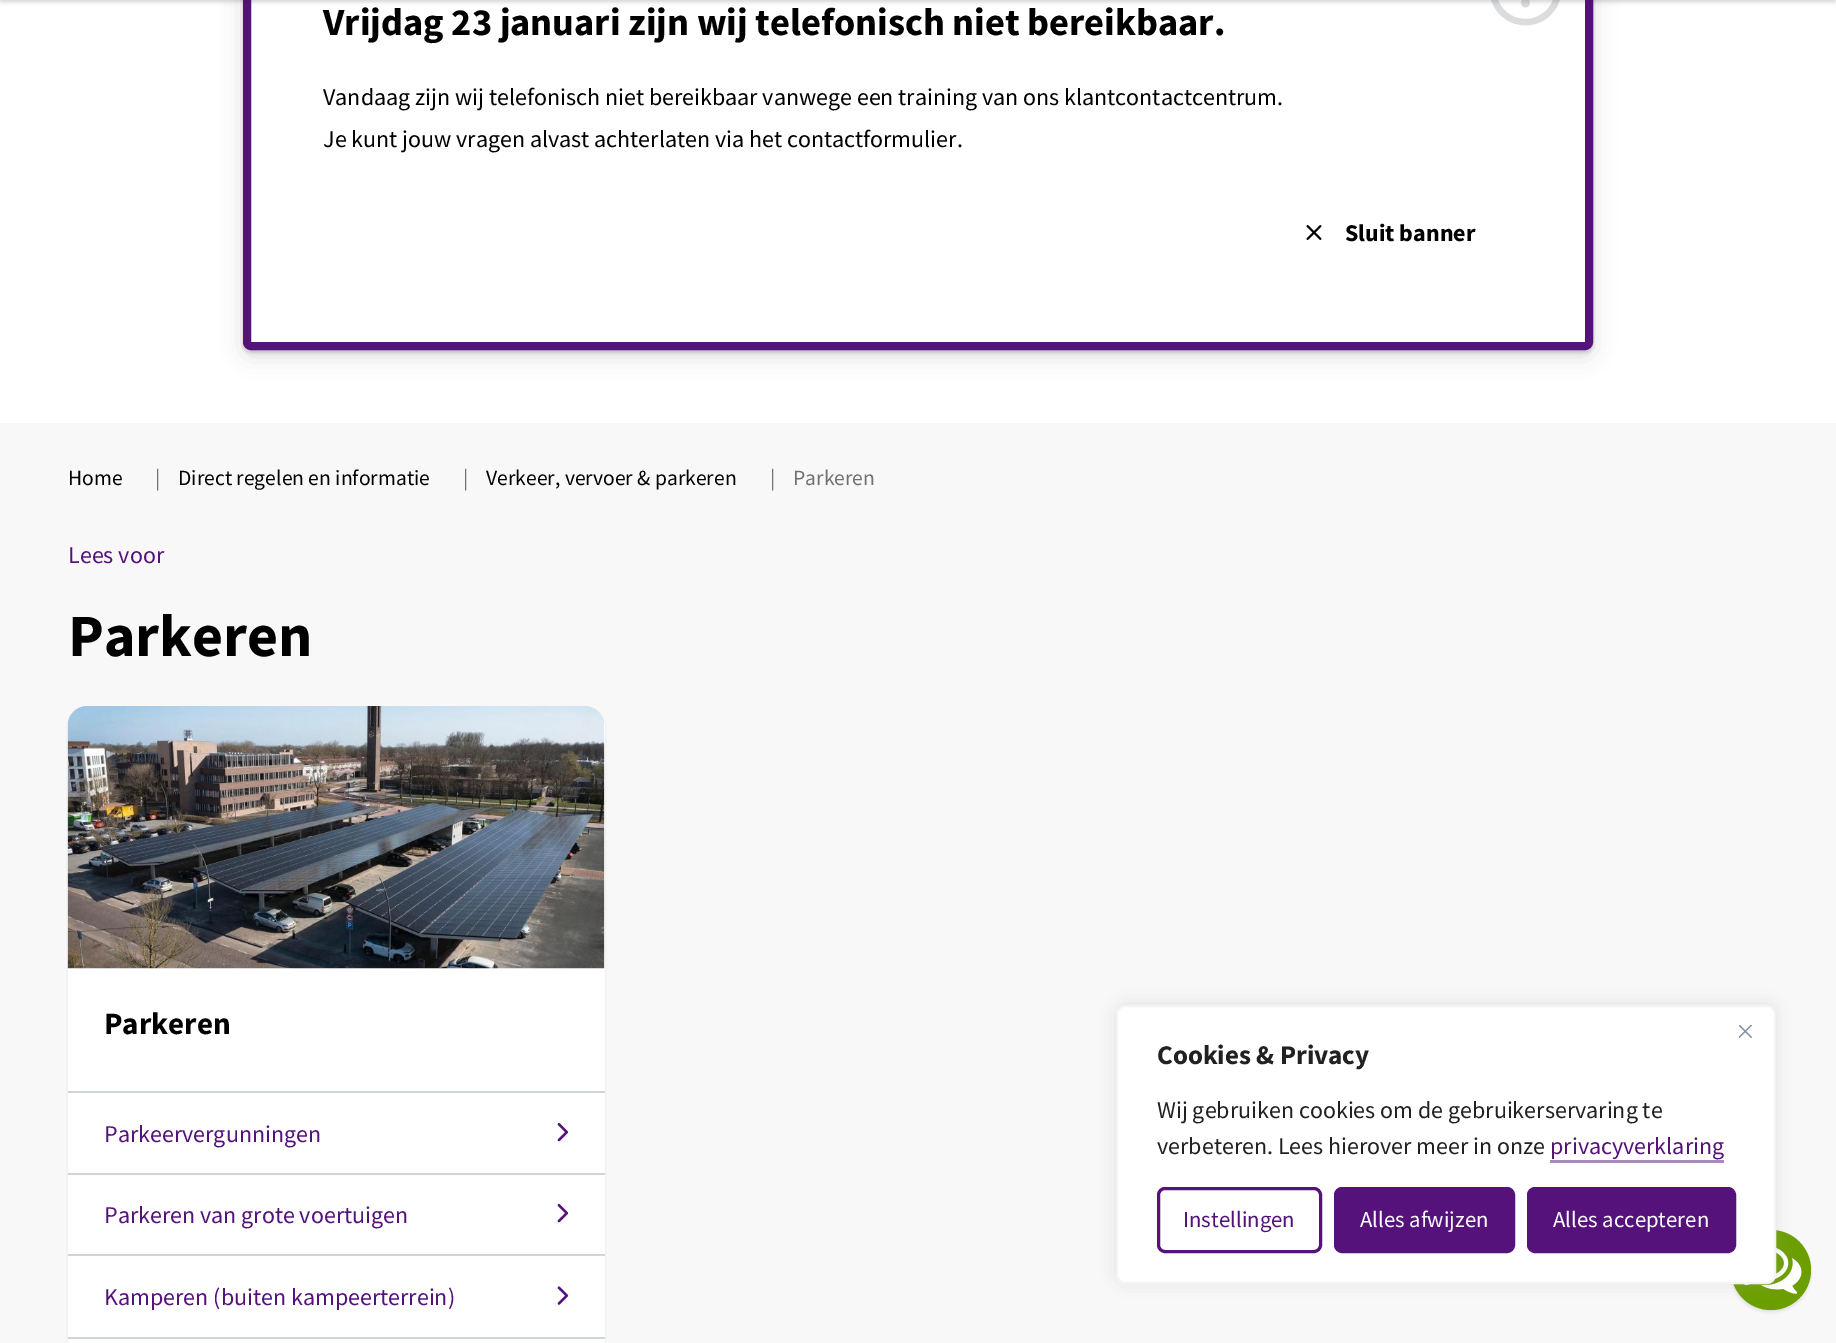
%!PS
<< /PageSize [1836 1343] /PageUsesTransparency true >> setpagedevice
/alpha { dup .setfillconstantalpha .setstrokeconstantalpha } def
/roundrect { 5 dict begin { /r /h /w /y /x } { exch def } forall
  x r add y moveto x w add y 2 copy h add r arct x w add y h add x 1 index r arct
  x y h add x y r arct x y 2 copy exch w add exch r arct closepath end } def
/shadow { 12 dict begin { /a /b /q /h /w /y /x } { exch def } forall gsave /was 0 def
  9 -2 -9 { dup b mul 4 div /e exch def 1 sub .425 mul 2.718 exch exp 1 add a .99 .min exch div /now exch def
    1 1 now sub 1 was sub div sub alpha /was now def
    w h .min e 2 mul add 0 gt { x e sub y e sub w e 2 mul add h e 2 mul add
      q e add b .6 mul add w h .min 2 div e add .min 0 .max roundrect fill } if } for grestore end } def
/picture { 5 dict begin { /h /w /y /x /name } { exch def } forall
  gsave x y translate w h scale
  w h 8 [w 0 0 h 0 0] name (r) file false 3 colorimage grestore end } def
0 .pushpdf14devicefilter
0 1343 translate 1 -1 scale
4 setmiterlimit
0.973 setgray
0 0 1836 1343 rectfill
1 setgray
0 0 1836 423 rectfill
0.157 0.173 0.208 setrgbcolor
243 -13 1350 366 8 1.5 0.18 shadow
243 -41 1350 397 8 11 0.16 shadow
1 setgray
247 -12 1342 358 4 roundrect gsave fill grestore
0.333 0.071 0.482 setrgbcolor
8 setlinewidth
stroke
(img1.rgb) 1491 0 69 26 picture
0.157 0.173 0.208 setrgbcolor
0 -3 1836 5 0 1 0.1 shadow
0 -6 1836 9 0 2 0.08 shadow
/SourceSansPro-Bold [38.4 0 0 -38.4 0 0] selectfont
0 setgray
323 35 moveto (Vrijdag 23 januari zijn wij telefonisch niet bereikbaar.) show
/SourceSansPro-Regular [24 0 0 -24 0 0] selectfont
323 105 moveto (Vandaag zijn wij telefonisch niet bereikbaar vanwege een training van ons klantcontactcentrum.) show
323 147 moveto (Je kunt jouw vragen alvast achterlaten via het contactformulier.) show
(img2.rgb) 1306 225 16 15 picture
/SourceSansPro-Bold [24 0 0 -24 0 0] selectfont
1345 241 moveto (Sluit banner) show
/SourceSansPro-Regular [21.6 0 0 -21.6 0 0] selectfont
68 485 moveto (Home) show
0.424 0.459 0.49 setrgbcolor
155 485 moveto (|) show
0 setgray
178 485 moveto (Direct regelen en informatie) show
0.424 0.459 0.49 setrgbcolor
463 485 moveto (|) show
0 setgray
486 485 moveto (Verkeer, vervoer & parkeren) show
0.424 0.459 0.49 setrgbcolor
770 485 moveto (|) show
0.439 setgray
793 485 moveto (Parkeren) show
/SourceSansPro-Regular [24 0 0 -24 0 0] selectfont
0.333 0.071 0.482 setrgbcolor
68 563 moveto (Lees voor) show
/SourceSansPro-Bold [60 0 0 -60 0 0] selectfont
0 setgray
68 656 moveto (Parkeren) show
0.157 0.173 0.208 setrgbcolor
68 708 537 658 20 1 0.08 shadow
1 setgray
68 707 537 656 20 roundrect fill
(img3.rgb) 67 706 538 263 picture
/SourceSansPro-Bold [31 0 0 -31 0 0] selectfont
0 setgray
104 1034 moveto (Parkeren) show
0.808 0.831 0.855 setrgbcolor
68 1091 537 2 rectfill
68 1173 537 2 rectfill
/SourceSansPro-Regular [24 0 0 -24 0 0] selectfont
0.333 0.071 0.482 setrgbcolor
104 1142 moveto (Parkeervergunningen) show
(img4.rgb) 557 1123 12 19 picture
0.808 0.831 0.855 setrgbcolor
68 1254 537 2 rectfill
0.333 0.071 0.482 setrgbcolor
104 1223 moveto (Parkeren van grote voertuigen) show
(img4.rgb) 557 1204 12 19 picture
0.808 0.831 0.855 setrgbcolor
68 1337 537 2 rectfill
0.333 0.071 0.482 setrgbcolor
104 1305 moveto (Kamperen \(buiten kampeerterrein\)) show
(img5.rgb) 557 1286 12 19 picture
0.157 0.173 0.208 setrgbcolor
1731 1233 80 80 40 1.5 0.05 shadow
1731 1232 80 79 39.5 1 0.08 shadow
0.42 0.624 0 setrgbcolor
newpath 1771 1270 40 0 360 arc closepath fill
(img7.rgb) 1744 1247 58 47 picture
0.675 0.671 0.671 setrgbcolor
1116 1004 660 279 9 7.5 0.3 shadow
1 setgray
1117 1006 658 277 8 roundrect gsave fill grestore
0.957 setgray
2 setlinewidth
stroke
(img6.rgb) 1739 1025 13 13 picture
/SourceSansPro-Bold [27 0 0 -27 0 0] selectfont
0.129 setgray
1157 1064 moveto (Cookies & Privacy) show
/SourceSansPro-Regular [24 0 0 -24 0 0] selectfont
1157 1118 moveto (Wij gebruiken cookies om de gebruikerservaring te) show
1157 1154 moveto (verbeteren. Lees hierover meer in onze) show
0.333 0.071 0.482 setrgbcolor
1550 1154 moveto (privacyverklaring) show
0.667 0.537 0.741 setrgbcolor
1550 1160 174 3 rectfill
0.333 0.071 0.482 setrgbcolor
3 setlinewidth
1158.5 1188.5 162 63 6.5 roundrect stroke
/SourceSansPro-Regular [22.75 0 0 -22.75 0 0] selectfont
1183 1227 moveto (Instellingen) show
1335.5 1188.5 178 63 6.5 roundrect gsave fill grestore
stroke
1 setgray
1360 1227 moveto (Alles afwijzen) show
0.333 0.071 0.482 setrgbcolor
1528.5 1188.5 206 63 6.5 roundrect gsave fill grestore
stroke
1 setgray
1553 1227 moveto (Alles accepteren) show
.poppdf14devicefilter showpage
